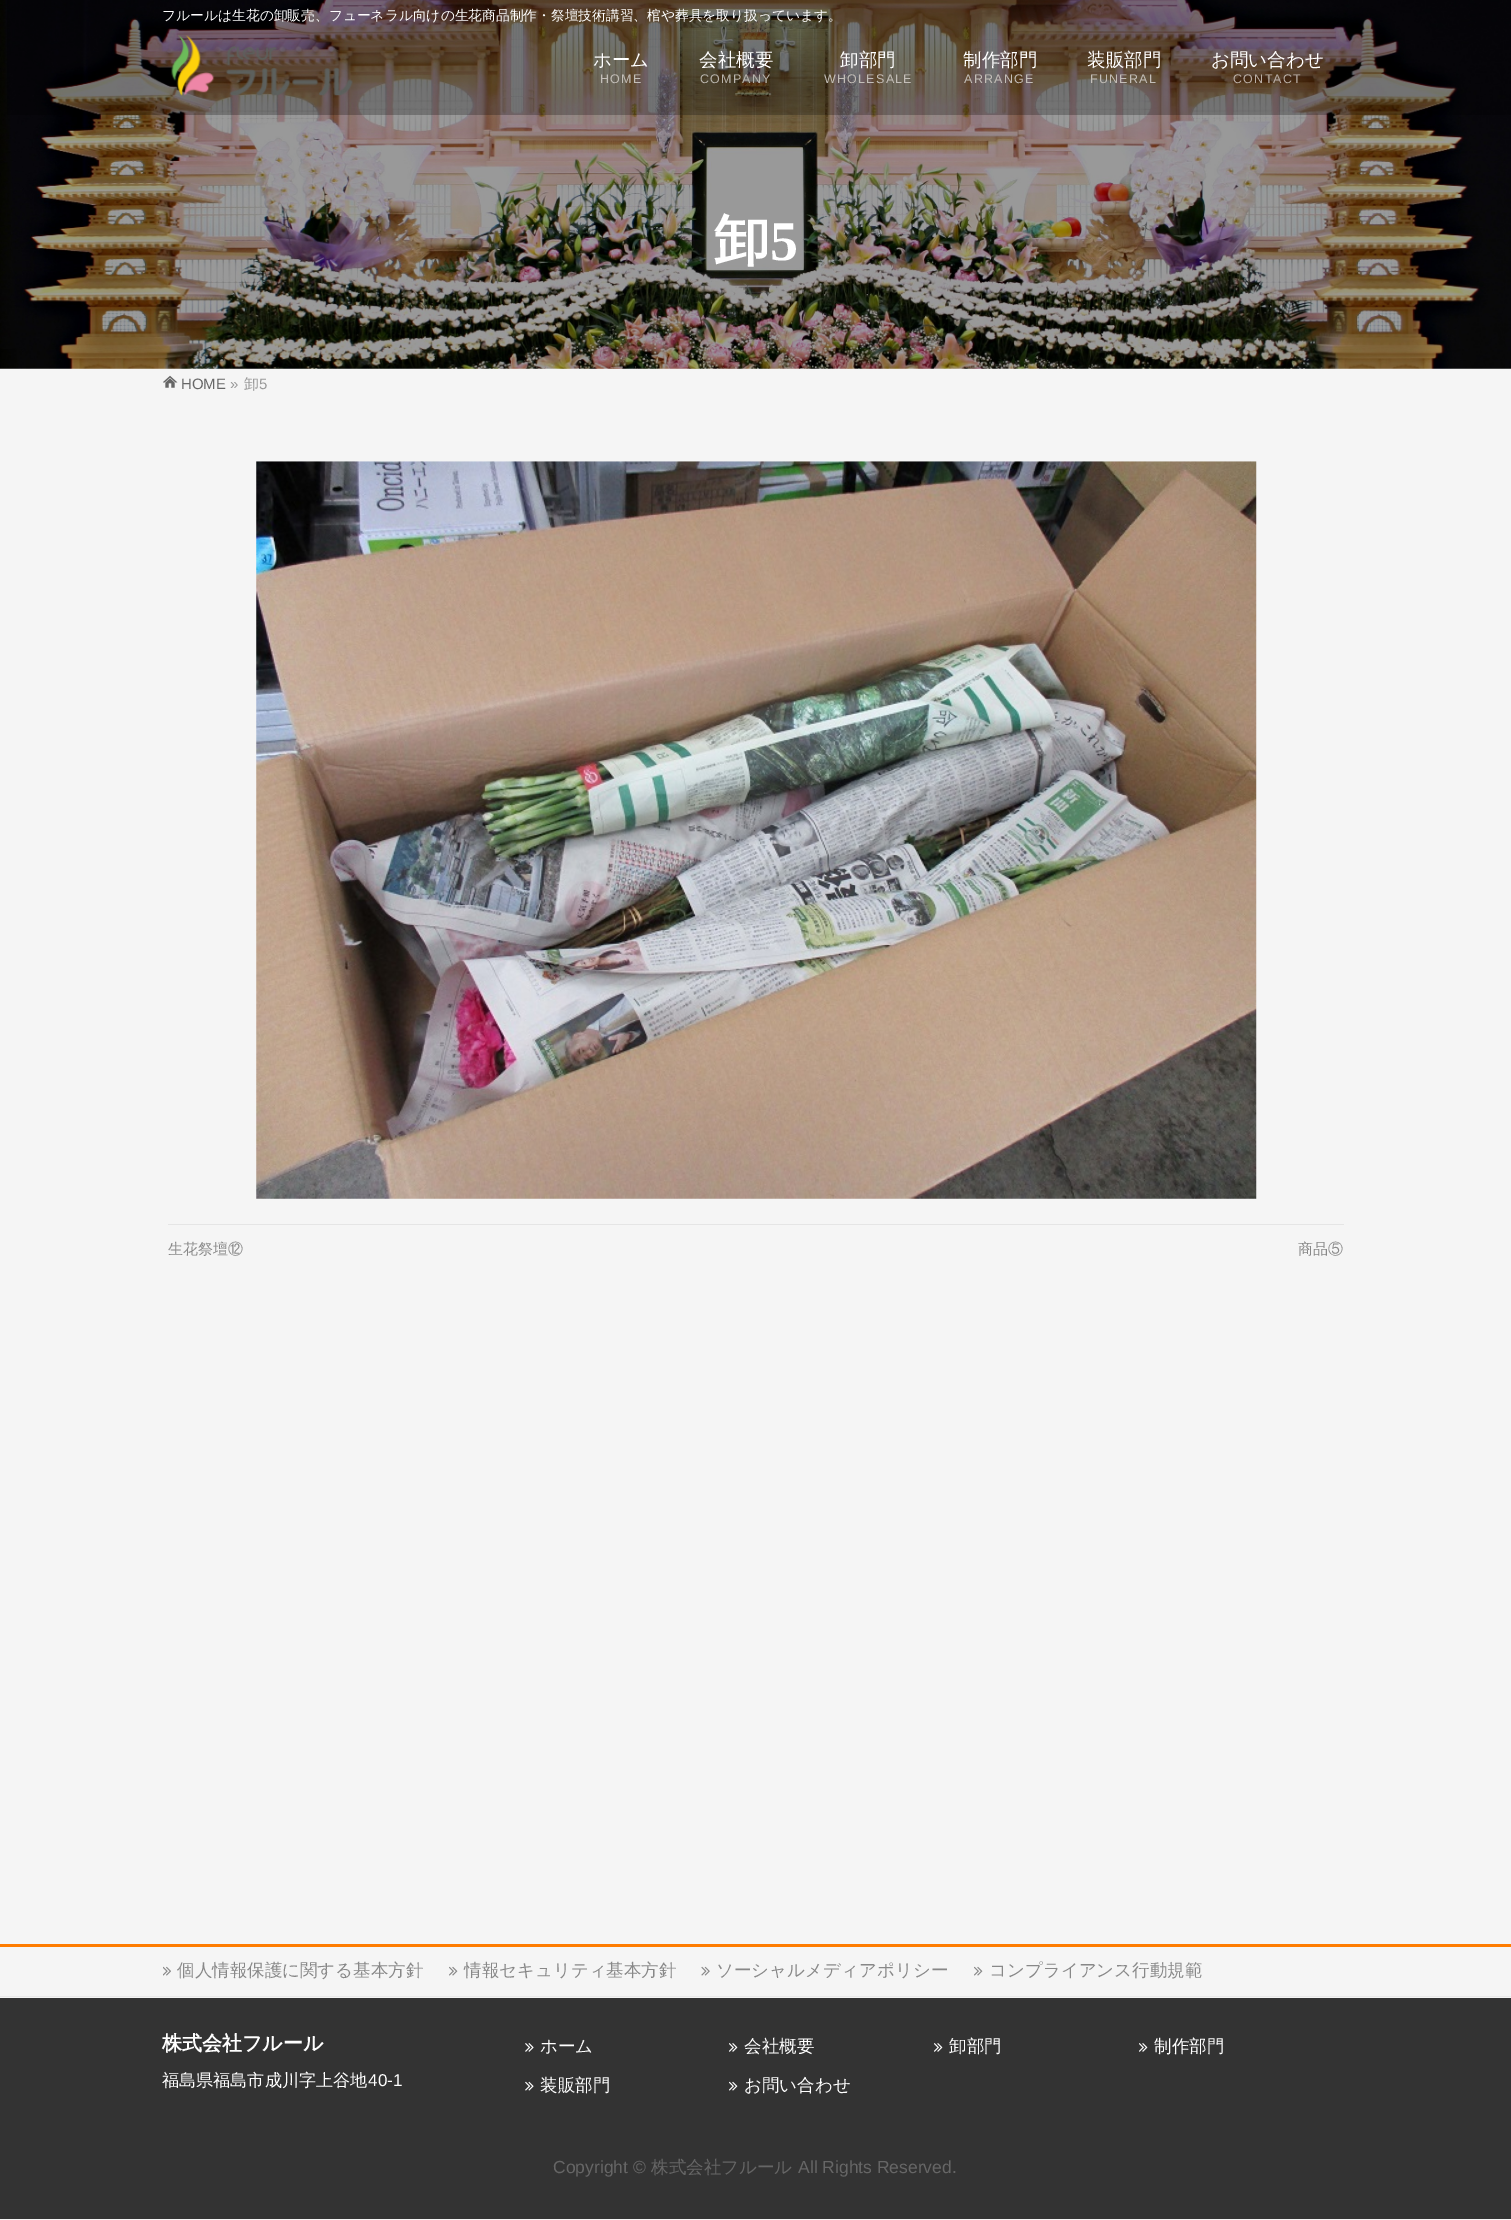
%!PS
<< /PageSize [1511 2220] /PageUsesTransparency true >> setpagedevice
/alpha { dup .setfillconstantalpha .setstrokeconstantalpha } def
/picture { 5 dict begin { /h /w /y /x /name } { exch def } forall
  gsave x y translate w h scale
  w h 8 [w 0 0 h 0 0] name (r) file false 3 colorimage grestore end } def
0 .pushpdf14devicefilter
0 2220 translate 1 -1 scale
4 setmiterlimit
0.961 setgray
0 0 1511 2220 rectfill
(img2.rgb) 0 0 1511 369 picture
0.25 alpha
0 setgray
7 0 1504 115 rectfill
/WenQuanYiZenHei-Medium [13.75 0 0 -13.75 0 0] selectfont
1 alpha
1 setgray
162 20 moveto (フルールは生花の卸販売、フューネラル向けの生花商品制作・祭壇技術講習、棺や葬具を取り扱っています。) show
(img1.rgb) 171 35 182 61 picture
/WenQuanYiZenHei-Medium [18.5 0 0 -18.5 0 0] selectfont
593 66 moveto (ホーム) show
/LiberationSans-Regular [12.5 0 0 -12.5 0 0] selectfont
0.765 0.745 0.722 setrgbcolor
600 83 moveto 1.25 0 (HOME) ashow
/WenQuanYiZenHei-Medium [18.5 0 0 -18.5 0 0] selectfont
1 setgray
699 66 moveto (会社概要) show
/LiberationSans-Regular [12.5 0 0 -12.5 0 0] selectfont
0.722 0.706 0.678 setrgbcolor
700 83 moveto 1.25 0 (COMPANY) ashow
/WenQuanYiZenHei-Medium [18.5 0 0 -18.5 0 0] selectfont
1 setgray
840 66 moveto (卸部門) show
/LiberationSans-Regular [12.5 0 0 -12.5 0 0] selectfont
0.765 0.745 0.722 setrgbcolor
824 83 moveto 1.25 0 (WHOLESALE) ashow
/WenQuanYiZenHei-Medium [18.5 0 0 -18.5 0 0] selectfont
1 setgray
963 66 moveto (制作部門) show
/LiberationSans-Regular [12.5 0 0 -12.5 0 0] selectfont
0.765 0.745 0.722 setrgbcolor
964 83 moveto 1.25 0 (ARRANGE) ashow
/WenQuanYiZenHei-Medium [18.5 0 0 -18.5 0 0] selectfont
1 setgray
1087 66 moveto (装販部門) show
/LiberationSans-Regular [12.5 0 0 -12.5 0 0] selectfont
0.765 0.745 0.722 setrgbcolor
1090 83 moveto 1.25 0 (FUNERAL) ashow
/WenQuanYiZenHei-Medium [18.5 0 0 -18.5 0 0] selectfont
1 setgray
1211 66 moveto (お問い合わせ) show
/LiberationSans-Regular [12.5 0 0 -12.5 0 0] selectfont
0.725 0.682 0.651 setrgbcolor
1233 83 moveto 1.25 0 (CONTACT) ashow
/WenQuanYiZenHei-Bold [56 0 0 -56 0 0] selectfont
1 setgray
714 260 moveto (卸) show
/LiberationSerif-Bold [56 0 0 -56 0 0] selectfont
770 260 moveto (5) show
(img3.rgb) 163 375 15 13 picture
/LiberationSans-Regular [15 0 0 -15 0 0] selectfont
0.4 setgray
181 389 moveto (HOME) show
0.6 setgray
230 389 moveto (») show
/WenQuanYiZenHei-Medium [15 0 0 -15 0 0] selectfont
244 389 moveto (卸) show
/LiberationSans-Regular [15 0 0 -15 0 0] selectfont
259 389 moveto (5) show
(img4.rgb) 256 461 1001 738 picture
0.898 setgray
168 1224 1176 1 rectfill
/WenQuanYiZenHei-Medium [15 0 0 -15 0 0] selectfont
0.533 setgray
168 1254 moveto (生花祭壇⑫) show
1298 1254 moveto (商品⑤) show
1 0.486 0 setrgbcolor
0 1944 1511 3 rectfill
0.914 setgray
0 1996 1511 1 rectfill
(img5.rgb) 163 1966 8 10 picture
/WenQuanYiZenHei-Medium [17.5 0 0 -17.5 0 0] selectfont
0.533 setgray
177 1976 moveto (個人情報保護に関する基本方針) show
(img6.rgb) 449 1966 9 10 picture
464 1976 moveto (情報セキュリティ基本方針) show
(img7.rgb) 701 1966 9 10 picture
716 1976 moveto (ソーシャルメディアポリシー) show
(img6.rgb) 974 1966 9 10 picture
989 1976 moveto (コンプライアンス行動規範) show
0.2 setgray
0 1998 1511 221 rectfill
/WenQuanYiZenHei-Bold [20 0 0 -20 0 0] selectfont
1 setgray
162 2050 moveto (株式会社フルール) show
/WenQuanYiZenHei-Medium [17.1 0 0 -17.1 0 0] selectfont
162 2086 moveto (福島県福島市成川字上谷地) show
/LiberationSans-Regular [17.1 0 0 -17.1 0 0] selectfont
368 2086 moveto (40-1) show
(img8.rgb) 525 2043 9 9 picture
/WenQuanYiZenHei-Medium [17.5 0 0 -17.5 0 0] selectfont
540 2052 moveto (ホーム) show
(img9.rgb) 729 2043 9 9 picture
744 2052 moveto (会社概要) show
(img9.rgb) 934 2043 9 9 picture
949 2052 moveto (卸部門) show
(img9.rgb) 1139 2043 9 9 picture
1154 2052 moveto (制作部門) show
(img10.rgb) 525 2081 9 10 picture
540 2091 moveto (装販部門) show
(img11.rgb) 729 2081 9 10 picture
744 2091 moveto (お問い合わせ) show
/LiberationSans-Regular [17.5 0 0 -17.5 0 0] selectfont
0.4 setgray
553 2173 moveto (Copyright ©) show
/WenQuanYiZenHei-Medium [17.5 0 0 -17.5 0 0] selectfont
651 2173 moveto (株式会社フルール) show
/LiberationSans-Regular [17.5 0 0 -17.5 0 0] selectfont
798 2173 moveto (All Rights Reserved.) show
.poppdf14devicefilter showpage
